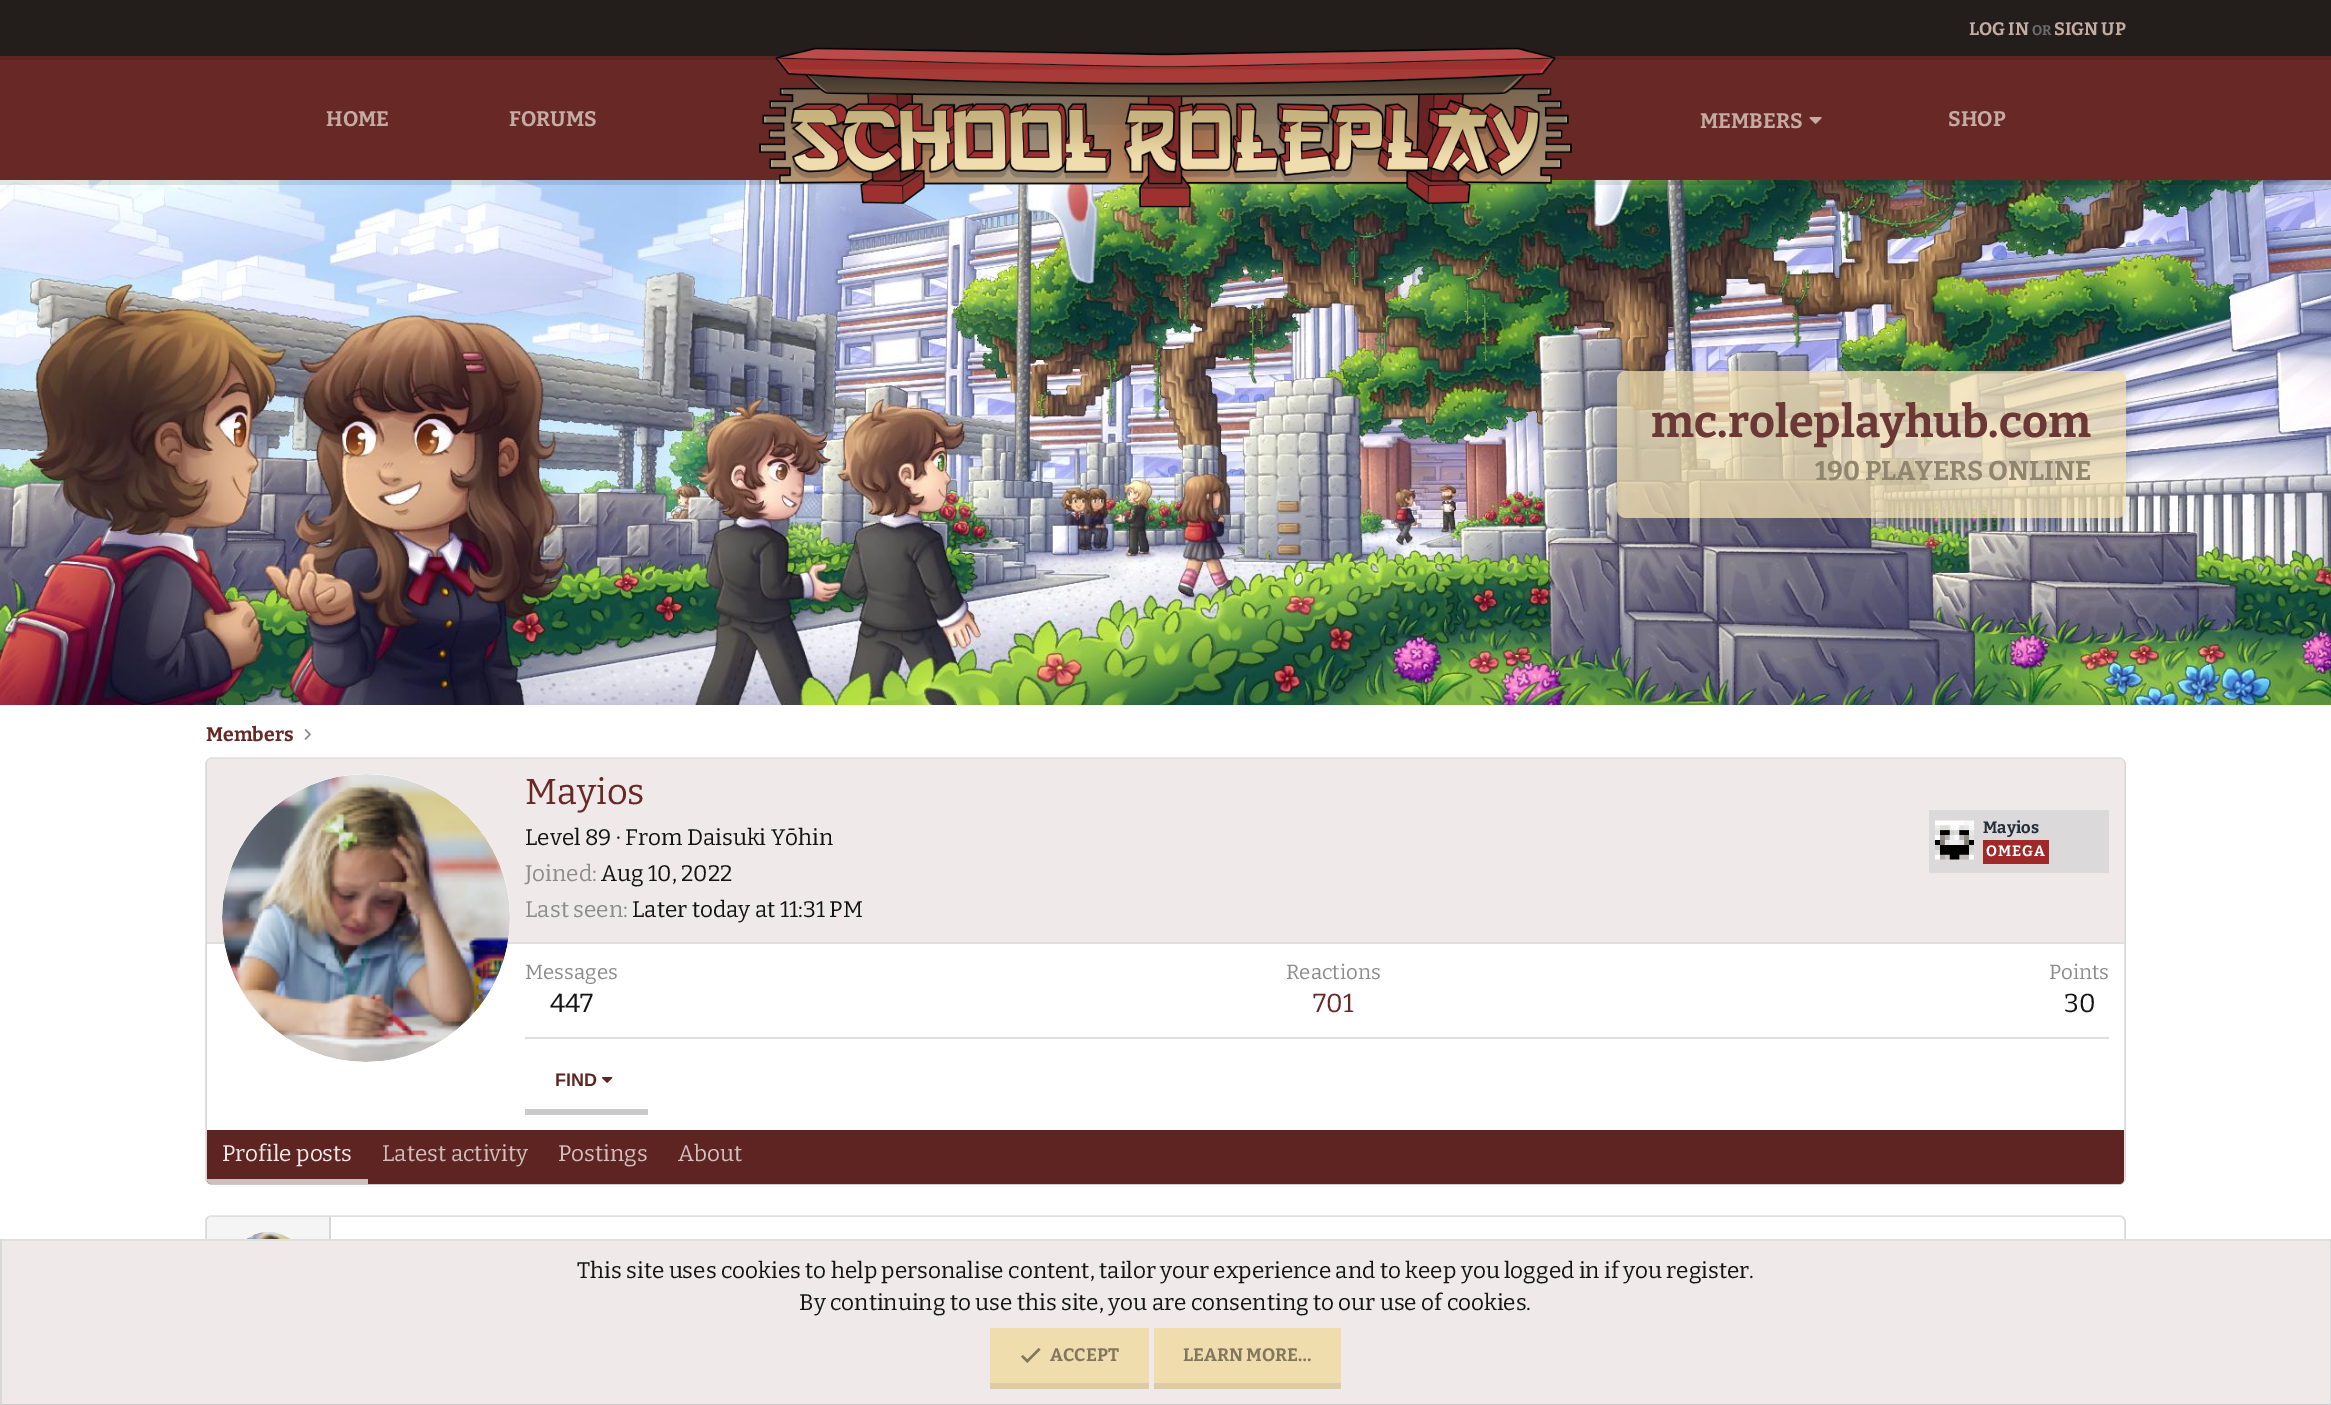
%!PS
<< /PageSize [2331 1405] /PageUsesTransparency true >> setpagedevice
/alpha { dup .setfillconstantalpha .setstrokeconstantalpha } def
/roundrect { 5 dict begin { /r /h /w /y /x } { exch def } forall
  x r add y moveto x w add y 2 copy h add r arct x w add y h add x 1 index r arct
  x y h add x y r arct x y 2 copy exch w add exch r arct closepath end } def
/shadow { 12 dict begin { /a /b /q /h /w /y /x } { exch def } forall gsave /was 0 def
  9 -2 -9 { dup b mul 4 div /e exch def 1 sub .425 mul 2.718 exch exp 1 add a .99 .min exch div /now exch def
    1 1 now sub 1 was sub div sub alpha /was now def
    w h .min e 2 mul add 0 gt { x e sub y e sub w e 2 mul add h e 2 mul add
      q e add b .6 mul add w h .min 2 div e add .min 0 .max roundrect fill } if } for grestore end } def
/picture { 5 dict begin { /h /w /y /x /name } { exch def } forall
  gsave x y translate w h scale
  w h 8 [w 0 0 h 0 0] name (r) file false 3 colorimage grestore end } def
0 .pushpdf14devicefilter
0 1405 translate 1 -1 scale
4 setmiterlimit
1 setgray
0 0 2331 1405 rectfill
0.137 0.114 0.11 setrgbcolor
0 0 2331 56 rectfill
0.365 0.141 0.129 setrgbcolor
0 56 2331 4 rectfill
/Bitter-Bold [18 0 0 -18 0 0] selectfont
0.769 0.675 0.639 setrgbcolor
1969 35 moveto (LOG IN) show
/Bitter-Bold [14 0 0 -14 0 0] selectfont
0.435 0.42 0.42 setrgbcolor
2032 35 moveto (OR) show
/Bitter-Bold [18 0 0 -18 0 0] selectfont
0.769 0.675 0.639 setrgbcolor
2054 35 moveto (SIGN UP) show
(img3.rgb) 0 180 2331 525 picture
0.1 alpha
0 setgray
0 180 2331 5 rectfill
1 alpha
0.408 0.157 0.145 setrgbcolor
0 60 2331 120 rectfill
/Bitter-Bold [21 0 0 -21 0 0] selectfont
0.769 0.675 0.639 setrgbcolor
326 126 moveto (HOME) show
509 126 moveto (FORUMS) show
(img1.rgb) 759 47 813 161 picture
1700 128 moveto (MEMBERS) show
(img2.rgb) 1809 117 13 7 picture
1948 126 moveto (SHOP) show
gsave
newpath 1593 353 moveto 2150 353 lineto 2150 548 lineto 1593 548 lineto closepath 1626 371 moveto 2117 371 lineto 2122 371 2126 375 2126 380 curveto 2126 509 lineto 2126 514 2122 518 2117 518 curveto 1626 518 lineto 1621 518 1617 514 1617 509 curveto 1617 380 lineto 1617 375 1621 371 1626 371 curveto closepath eoclip newpath
0 setgray
1617 377 509 147 9 7.5 0.15 shadow
grestore
0.75 alpha
0.937 0.867 0.682 setrgbcolor
1617 371 509 147 9 roundrect fill
/Bitter-Bold [45 0 0 -45 0 0] selectfont
1 alpha
0.42 0.22 0.208 setrgbcolor
1651 437 moveto (mc.roleplayhub.com) show
/Bitter-Bold [27 0 0 -27 0 0] selectfont
0.565 0.525 0.435 setrgbcolor
1815 480 moveto (190 PLAYERS ONLINE) show
/Bitter-Bold [19.5 0 0 -19.5 0 0] selectfont
0.408 0.157 0.145 setrgbcolor
206 741 moveto (Members) show
(img4.rgb) 304 729 7 11 picture
0.875 setgray
1.5 setlinewidth
newpath 208 760 moveto 209 759 210 758 211.5 758 curveto 2119.5 758 lineto 2121 758 2122 759 2123 760 curveto stroke
0.847 setgray
newpath 2123 760 moveto 2124 761 2125 762 2125 763.5 curveto 2125 1179 lineto 2125 1180.5 2124 1181.5 2123 1182.5 curveto stroke
0.796 setgray
newpath 2123 1182.5 moveto 2122 1183.5 2121 1184 2119.5 1184 curveto 211.5 1184 lineto 210 1184 209 1183.5 208 1182.5 curveto stroke
0.847 setgray
newpath 208 1182.5 moveto 207 1181.5 206 1180.5 206 1179 curveto 206 763.5 lineto 206 762 207 761 208 760 curveto stroke
0.937 0.914 0.914 setrgbcolor
newpath 212 759 moveto 2119 759 lineto 2122 759 2124 761 2124 764 curveto 2124 944 lineto 207 944 lineto 207 764 lineto 207 761 209 759 212 759 curveto closepath fill
0.875 setgray
207 942 1917 2 rectfill
0.996 setgray
newpath 366 918 144 0 360 arc closepath fill
(img5.rgb) 222 774 288 288 picture
/Bitter-Regular [36 0 0 -36 0 0] selectfont
0.408 0.157 0.145 setrgbcolor
525 804 moveto (Mayios) show
/Bitter-Regular [22.5 0 0 -22.5 0 0] selectfont
0.078 setgray
525 845 moveto (Level 89 · From Daisuki Yōhin) show
0.859 0.851 0.851 setrgbcolor
1929 810 180 63 rectfill
(img6.rgb) 1935 820 39 40 picture
/Bitter-Bold [16.5 0 0 -16.5 0 0] selectfont
0.137 0.184 0.231 setrgbcolor
1983 833 moveto (Mayios) show
0.627 0.157 0.157 setrgbcolor
1983 840 66 24 rectfill
/Bitter-Bold [15 0 0 -15 0 0] selectfont
1 setgray
1986 856 moveto 1 0 (OMEGA) ashow
/Bitter-Regular [22.5 0 0 -22.5 0 0] selectfont
0.549 setgray
525 881 moveto (Joined:) show
0.078 setgray
601 881 moveto (Aug 10, 2022) show
0.549 setgray
525 917 moveto (Last seen:) show
0.078 setgray
632 917 moveto (Later today at 11:31 PM) show
/Bitter-Regular [20.5 0 0 -20.5 0 0] selectfont
0.549 setgray
525 979 moveto (Messages) show
/Bitter-Regular [26 0 0 -26 0 0] selectfont
0.078 setgray
550 1012 moveto (447) show
/Bitter-Regular [20.5 0 0 -20.5 0 0] selectfont
0.549 setgray
1286 979 moveto (Reactions) show
/Bitter-Regular [26 0 0 -26 0 0] selectfont
0.408 0.157 0.145 setrgbcolor
1313 1012 moveto (701) show
/Bitter-Regular [20.5 0 0 -20.5 0 0] selectfont
0.549 setgray
2049 979 moveto (Points) show
/Bitter-Regular [26 0 0 -26 0 0] selectfont
0.078 setgray
2064 1012 moveto (30) show
0.875 setgray
525 1037 1584 2 rectfill
0.796 setgray
525 1109 123 6 rectfill
/LiberationSans-Bold [18 0 0 -18 0 0] selectfont
0.365 0.141 0.129 setrgbcolor
555 1086 moveto (FIND) show
(img7.rgb) 601 1077 12 6 picture
newpath 207 1130 moveto 2124 1130 lineto 2124 1179 lineto 2124 1182 2122 1184 2119 1184 curveto 212 1184 lineto 209 1184 207 1182 207 1179 curveto closepath fill
0.82 0.745 0.741 setrgbcolor
newpath 207 1179 moveto 368 1179 lineto 368 1184 lineto 212 1184 lineto 209 1184 207 1182 207 1179 curveto closepath fill
/Bitter-Regular [22.5 0 0 -22.5 0 0] selectfont
0.937 0.914 0.914 setrgbcolor
222 1161 moveto (Profile posts) show
0.82 0.745 0.741 setrgbcolor
382 1161 moveto (Latest activity) show
558 1161 moveto (Postings) show
678 1161 moveto (About) show
0.875 setgray
newpath 208 1217.5 moveto 209 1216.5 210 1216 211.5 1216 curveto 2119.5 1216 lineto 2121 1216 2122 1216.5 2123 1217.5 curveto stroke
0.847 setgray
newpath 2123 1217.5 moveto 2124 1218.5 2125 1219.5 2125 1221 curveto 2125 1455 lineto 2125 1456.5 2124 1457.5 2123 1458.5 curveto stroke
newpath 208 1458.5 moveto 207 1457.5 206 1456.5 206 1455 curveto 206 1221 lineto 206 1219.5 207 1218.5 208 1217.5 curveto stroke
0.961 setgray
newpath 212 1217 moveto 330 1217 lineto 330 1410 lineto 212 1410 lineto 209 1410 207 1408 207 1405 curveto 207 1222 lineto 207 1219 209 1217 212 1217 curveto closepath fill
0.847 setgray
329 1217 2 22 rectfill
0.996 setgray
newpath 269 1268 36 0 360 arc closepath fill
(img8.rgb) 247 1232 43 7 picture
0.937 0.914 0.914 setrgbcolor
2 1241 2328 163 rectfill
0.875 setgray
0 1239 2331 2 rectfill
0.847 setgray
2330 1239 1 166 rectfill
0.796 setgray
0 1404 2331 1 rectfill
0.847 setgray
0 1239 2 166 rectfill
0.078 setgray
577 1278 moveto (This site uses cookies to help personalise content, tailor your experience and to keep you logged in if you register.) show
799 1310 moveto (By continuing to use this site, you are consenting to our use of cookies.) show
0.937 0.867 0.682 setrgbcolor
990 1328 159 55 rectfill
0.867 0.8 0.631 setrgbcolor
990 1383 159 6 rectfill
(img9.rgb) 1021 1348 20 15 picture
/Bitter-Bold [18 0 0 -18 0 0] selectfont
0.51 0.467 0.365 setrgbcolor
1050 1361 moveto (ACCEPT) show
0.937 0.867 0.682 setrgbcolor
1154 1328 187 55 rectfill
0.867 0.8 0.631 setrgbcolor
1154 1383 187 6 rectfill
0.51 0.467 0.365 setrgbcolor
1183 1361 moveto (LEARN MORE…) show
.poppdf14devicefilter showpage
